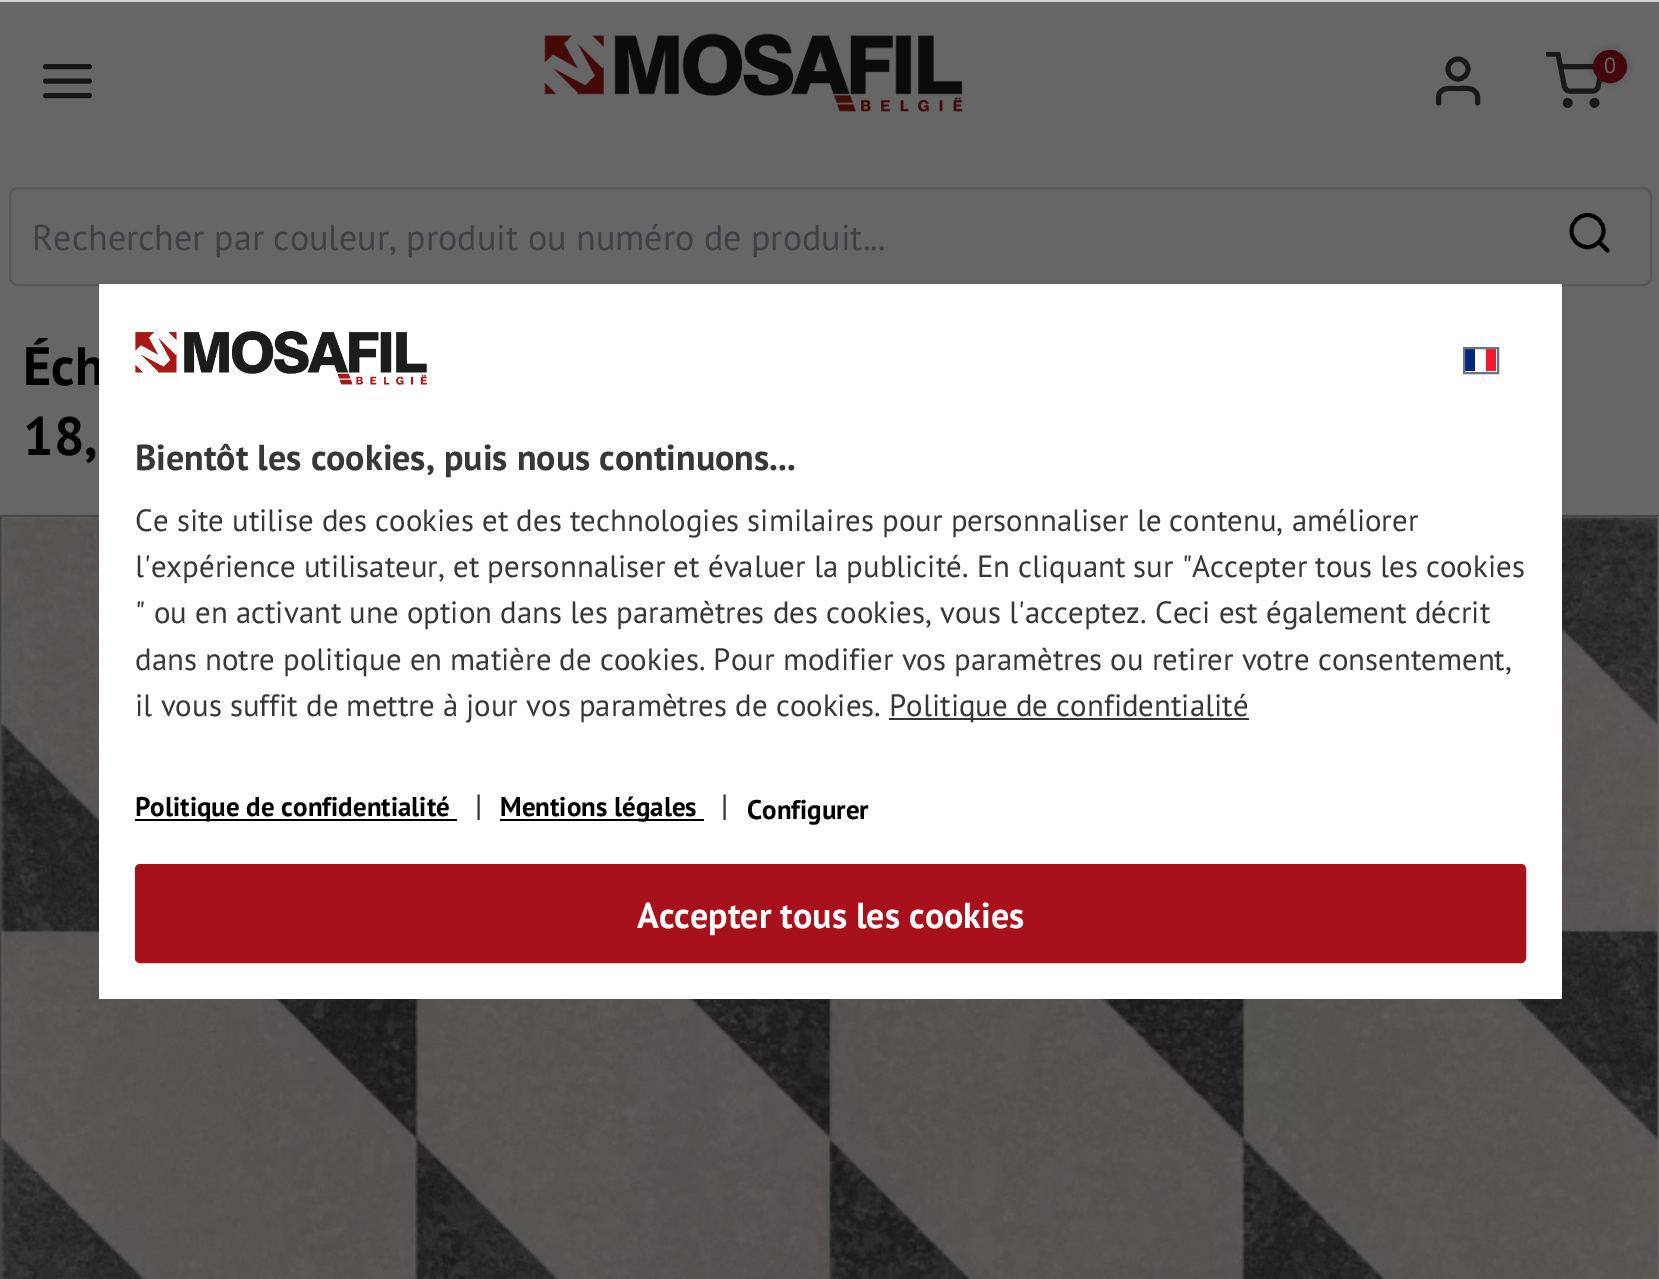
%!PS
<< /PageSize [1659 1279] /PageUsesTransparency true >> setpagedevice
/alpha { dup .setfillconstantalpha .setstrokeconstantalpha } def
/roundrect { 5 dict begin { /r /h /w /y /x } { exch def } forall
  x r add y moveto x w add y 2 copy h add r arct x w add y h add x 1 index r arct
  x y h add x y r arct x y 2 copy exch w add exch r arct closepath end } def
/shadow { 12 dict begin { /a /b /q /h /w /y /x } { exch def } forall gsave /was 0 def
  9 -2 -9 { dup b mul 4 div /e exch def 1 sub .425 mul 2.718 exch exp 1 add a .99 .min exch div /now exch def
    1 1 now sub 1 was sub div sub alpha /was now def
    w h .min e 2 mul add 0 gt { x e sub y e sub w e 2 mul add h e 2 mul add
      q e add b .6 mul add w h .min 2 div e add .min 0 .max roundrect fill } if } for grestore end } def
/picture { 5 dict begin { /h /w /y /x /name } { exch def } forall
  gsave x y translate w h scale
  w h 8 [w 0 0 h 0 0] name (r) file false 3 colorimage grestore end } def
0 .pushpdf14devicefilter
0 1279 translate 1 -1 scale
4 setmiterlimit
0.4 setgray
0 0 1659 1279 rectfill
0.086 setgray
4.9 setlinewidth
1 setlinecap
1 setlinejoin
newpath 45.5 81 moveto 89.5 81 lineto 45.5 66.5 moveto 89.5 66.5 lineto 45.5 95.5 moveto 89.5 95.5 lineto stroke
(img1.rgb) 544 33 419 80 picture
0.098 setgray
newpath 1477.5 103 moveto 1477.5 96 lineto 1475.5 86.5 1465 88.5 1458 88.5 curveto 1451 88.5 1440.5 86.5 1438.5 96 curveto 1438.5 103 lineto stroke
0 setlinecap
0 setlinejoin
newpath 1458 69 10 0 360 arc closepath stroke
newpath 1567.7 102.9 2.4 0 360 arc closepath stroke
newpath 1594.5 102.9 2.4 0 360 arc closepath stroke
gsave
1546 52 58 58 rectclip
1 setlinecap
1 setlinejoin
newpath 1548 54 moveto 1558 54 lineto 1564.5 87 lineto 1565 89 1567 91 1569.5 91 curveto 1593 91 lineto 1595.5 91 1597.5 89 1598 87 curveto 1602 66.5 lineto 1560.5 66.5 lineto stroke
grestore
0 setgray
1593 50 34 33 16.5 4.5 0.17 shadow
0.263 0.027 0.043 setrgbcolor
1594 51 32 31 15.5 roundrect gsave fill grestore
2 setlinewidth
stroke
/PTSans-Regular [22 0 0 -22 0 0] selectfont
0.4 setgray
1604 73 moveto (0) show
0.345 setgray
10 188 1641 97 8 roundrect stroke
/PTSans-Regular [36 0 0 -36 0 0] selectfont
0.243 0.255 0.275 setrgbcolor
32 250 moveto (Rechercher par couleur, produit ou numéro de produit...) show
0 setgray
3.9 setlinewidth
newpath 1587.5 231 16 0 360 arc closepath stroke
1 setlinecap
1 setlinejoin
newpath 1607.5 250.5 moveto 1599 242 lineto stroke
/PTSans-Bold [54 0 0 -54 0 0] selectfont
23 385 moveto (Éch) show
23 455 moveto (18,) show
0.275 setgray
2 setlinewidth
0 setlinecap
0 setlinejoin
1 516 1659 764 rectstroke
(img2.rgb) 1 516 1658 763 picture
0.82 0.835 0.859 setrgbcolor
0 0 1659 2 rectfill
1 setgray
99 284 1463 715 rectfill
(img3.rgb) 135 331 292 54 picture
0 0.149 0.498 setrgbcolor
1465 349 10 22 rectfill
0.953 0.094 0.188 setrgbcolor
1486 349 10 22 rectfill
0.42 0.447 0.502 setrgbcolor
1464 348 34 25 rectstroke
/PTSans-Bold [36 0 0 -36 0 0] selectfont
0.216 setgray
135 470 moveto (Bientôt les cookies, puis nous continuons...) show
/PTSans-Regular [30.85 0 0 -30.85 0 0] selectfont
135 531 moveto (Ce site utilise des cookies et des technologies similaires pour personnaliser le contenu, améliorer) show
135 577 moveto (l'expérience utilisateur, et personnaliser et évaluer la publicité. En cliquant sur "Accepter tous les cookies) show
135 623 moveto (" ou en activant une option dans les paramètres des cookies, vous l'acceptez. Ceci est également décrit) show
135 670 moveto (dans notre politique en matière de cookies. Pour modifier vos paramètres ou retirer votre consentement,) show
135 716 moveto (il vous suffit de mettre à jour vos paramètres de cookies.) show
889 718 360 2 rectfill
889 716 moveto (Politique de confidentialité) show
0 setgray
135 819 322 2 rectfill
/PTSans-Bold [27 0 0 -27 0 0] selectfont
135 816 moveto (Politique de confidentialité) show
/PTSans-Regular [30.85 0 0 -30.85 0 0] selectfont
0.216 setgray
475 816 moveto (|) show
0 setgray
500 819 204 2 rectfill
/PTSans-Bold [27 0 0 -27 0 0] selectfont
500 816 moveto (Mentions légales) show
/PTSans-Regular [30.85 0 0 -30.85 0 0] selectfont
0.216 setgray
721 816 moveto (|) show
/PTSans-Bold [27 0 0 -27 0 0] selectfont
0 setgray
747 819 moveto (Configurer) show
0.659 0.067 0.11 setrgbcolor
136 865 1389 97 4 roundrect gsave fill grestore
stroke
/PTSans-Bold [36 0 0 -36 0 0] selectfont
1 setgray
637 928 moveto (Accepter tous les cookies) show
.poppdf14devicefilter showpage
